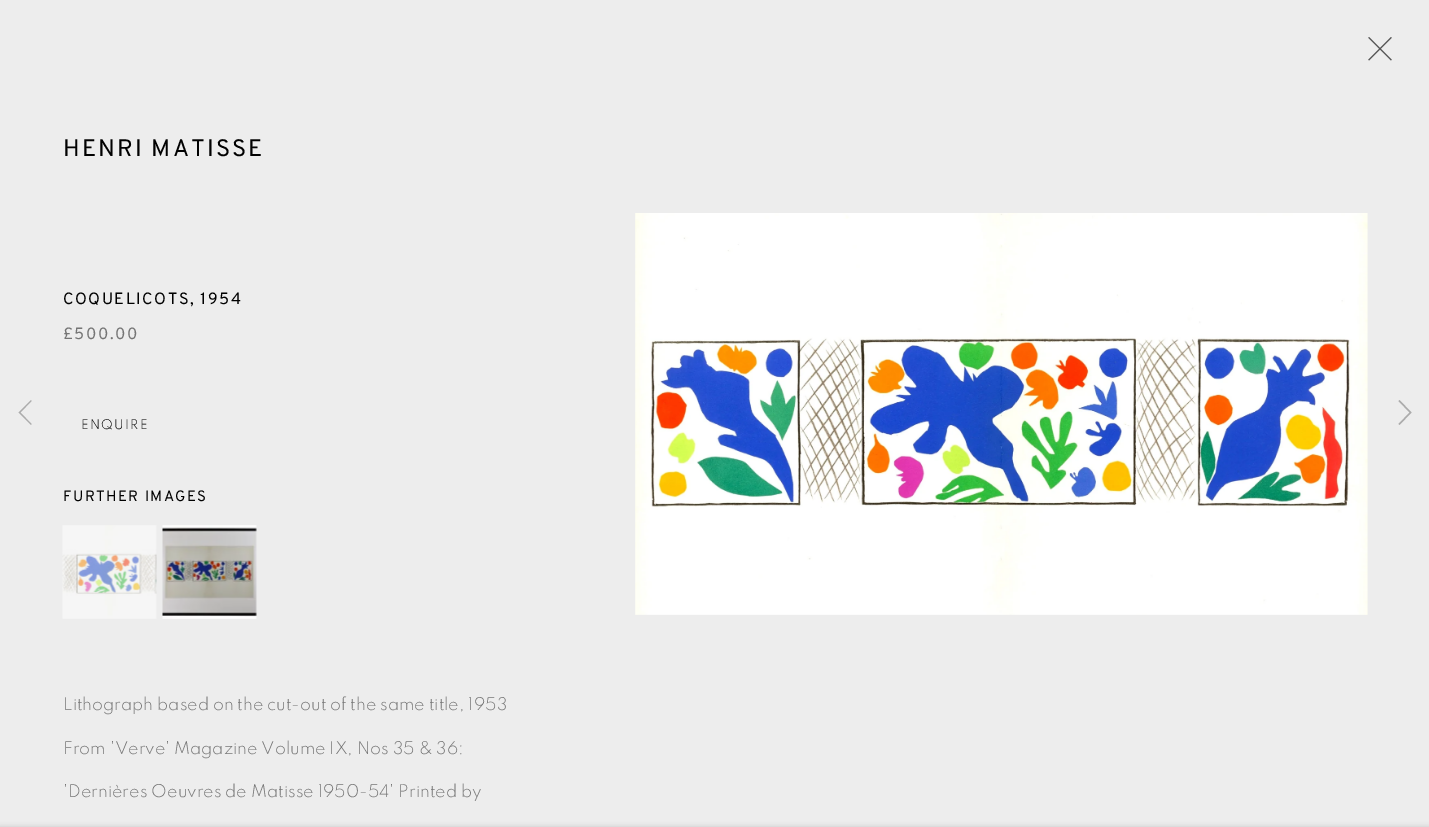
%!PS
<< /PageSize [1429 827] /PageUsesTransparency true >> setpagedevice
/alpha { dup .setfillconstantalpha .setstrokeconstantalpha } def
/roundrect { 5 dict begin { /r /h /w /y /x } { exch def } forall
  x r add y moveto x w add y 2 copy h add r arct x w add y h add x 1 index r arct
  x y h add x y r arct x y 2 copy exch w add exch r arct closepath end } def
/shadow { 12 dict begin { /a /b /q /h /w /y /x } { exch def } forall gsave /was 0 def
  9 -2 -9 { dup b mul 4 div /e exch def 1 sub .425 mul 2.718 exch exp 1 add a .99 .min exch div /now exch def
    1 1 now sub 1 was sub div sub alpha /was now def
    w h .min e 2 mul add 0 gt { x e sub y e sub w e 2 mul add h e 2 mul add
      q e add b .6 mul add w h .min 2 div e add .min 0 .max roundrect fill } if } for grestore end } def
/picture { 5 dict begin { /h /w /y /x /name } { exch def } forall
  gsave x y translate w h scale
  w h 8 [w 0 0 h 0 0] name (r) file false 3 colorimage grestore end } def
0 .pushpdf14devicefilter
0 827 translate 1 -1 scale
4 setmiterlimit
0.929 setgray
0 0 1429 827 rectfill
(img1.rgb) 1368 37 24 24 picture
/Overpass-Regular [23.75 0 0 -23.75 0 0] selectfont
0.004 setgray
63 156 moveto 2.1 0 (HENRI MATISSE) ashow
/Overpass-Regular [16.25 0 0 -16.25 0 0] selectfont
63 304 moveto 1.5 0 (COQUELICOTS, 1954) ashow
0.459 setgray
63 339 moveto 1.5 0 (£500.00) ashow
/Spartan-Light [13.75 0 0 -13.75 0 0] selectfont
0.004 setgray
81 429 moveto 1.25 0 (ENQUIRE) ashow
/Overpass-Regular [15 0 0 -15 0 0] selectfont
63 501 moveto 1.4 0 (FURTHER IMAGES) ashow
(img2.rgb) 62 525 95 94 picture
(img3.rgb) 162 525 95 94 picture
/Spartan-Light [18.1 0 0 -18.1 0 0] selectfont
0.459 setgray
63 710 moveto (Lithograph based on the cut-out of the same title, 1953) show
63 754 moveto (From 'Verve' Magazine Volume IX, Nos 35 & 36:) show
63 797 moveto ('Dernières Oeuvres de Matisse 1950-54' Printed by) show
(img4.rgb) 635 213 733 402 picture
0.675 setgray
newpath 19.5 413.5 moveto 31 425 lineto 31.5 424 lineto 20.5 412.5 lineto 31.5 401 lineto 31 400 lineto 18.5 412.5 lineto closepath fill
newpath 1411.5 412.5 moveto 1399.5 400 lineto 1398.5 401 lineto 1409.5 412.5 lineto 1398.5 424 lineto 1399.5 425 lineto closepath fill
0 setgray
0 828 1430 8 0 3 0.23 shadow
.poppdf14devicefilter showpage
